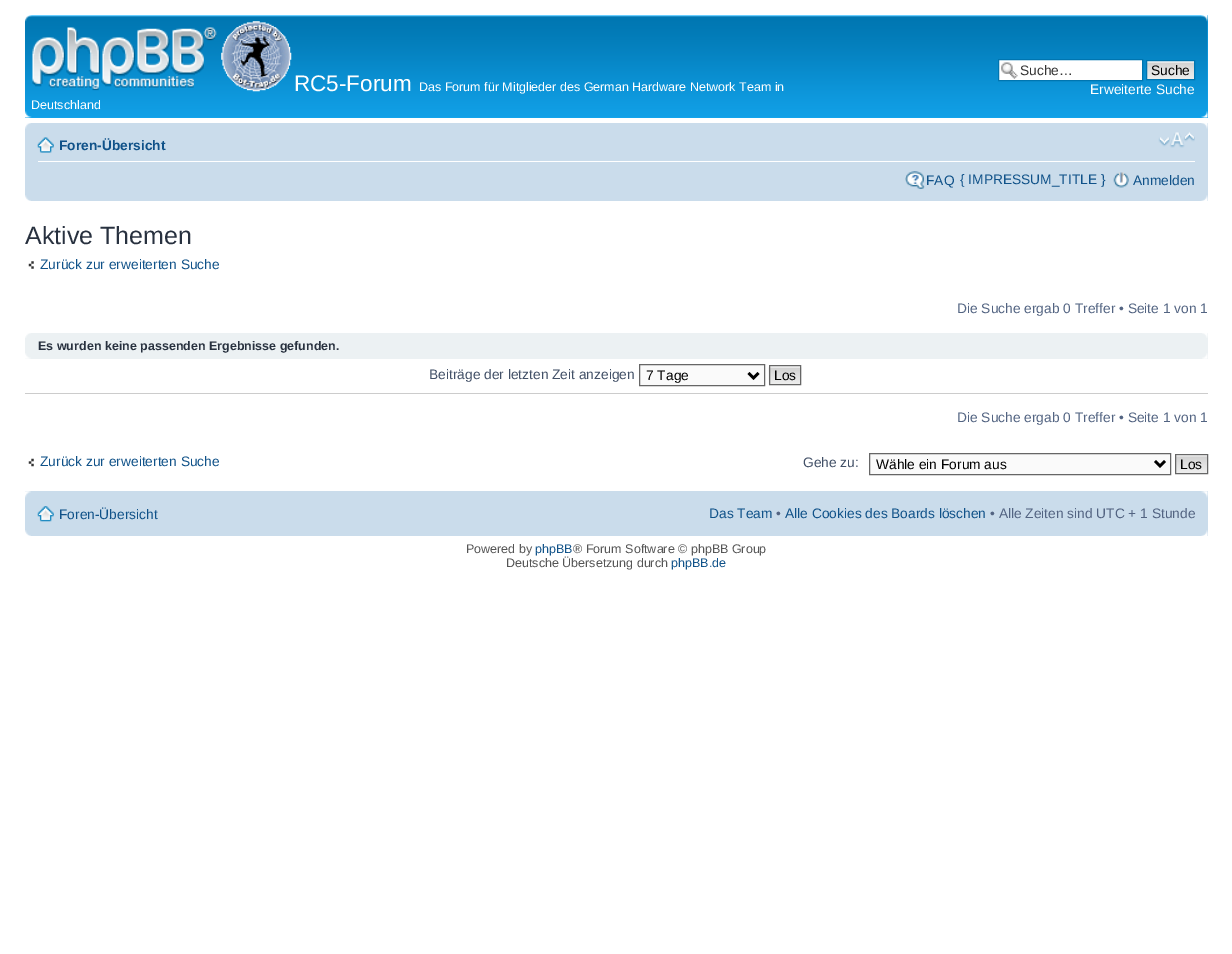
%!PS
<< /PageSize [1232 954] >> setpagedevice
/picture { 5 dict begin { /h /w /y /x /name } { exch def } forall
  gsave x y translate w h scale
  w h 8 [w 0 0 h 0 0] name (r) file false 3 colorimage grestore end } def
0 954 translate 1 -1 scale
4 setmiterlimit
1 setgray
0 0 1232 954 rectfill
0.071 0.639 0.922 setrgbcolor
25 15 1183 103 rectfill
(img1.rgb) 25 15 1183 102 picture
(img2.rgb) 25 15 7 7 picture
(img3.rgb) 1201 15 7 7 picture
(img4.rgb) 32 27 185 64 picture
(img5.rgb) 221 21 71 71 picture
/LiberationSans-Regular [22.5 0 0 -22.5 0 0] selectfont
1 setgray
294 91 moveto (RC5-Forum) show
/LiberationSans-Regular [12.5 0 0 -12.5 0 0] selectfont
419 91 moveto (Das Forum für Mitglieder des German Hardware Network Team in) show
31 109 moveto (Deutschland) show
999 60 143 20 rectfill
(img6.rgb) 1001 62 17 17 picture
0 0.459 0.69 setrgbcolor
998.5 59.5 144 21 rectstroke
/LiberationSans-Regular [13.75 0 0 -13.75 0 0] selectfont
0.2 setgray
1020 75 moveto (Suche…) show
0.98 setgray
1147 61 47 1 rectfill
(img7.rgb) 1147 62 47 17 picture
0 0.459 0.69 setrgbcolor
1146.5 60.5 48 19 rectstroke
0 setgray
1151 75 moveto (Suche) show
1 setgray
1090 94 moveto (Erweiterte Suche) show
(img8.rgb) 25 111 7 7 picture
(img9.rgb) 1201 111 7 7 picture
0.792 0.863 0.922 setrgbcolor
25 123 1183 78 rectfill
(img10.rgb) 25 123 6 6 picture
(img11.rgb) 1201 123 7 6 picture
1 setgray
38 161 1157 1 rectfill
(img12.rgb) 37 137 17 16 picture
/LiberationSans-Bold [13.75 0 0 -13.75 0 0] selectfont
0.063 0.322 0.537 setrgbcolor
59 150 moveto (Foren-Übersicht) show
(img13.rgb) 1158 132 37 16 picture
(img14.rgb) 905 171 20 18 picture
/LiberationSans-Regular [13.75 0 0 -13.75 0 0] selectfont
926 185 moveto (FAQ) show
960 184 moveto ({ IMPRESSUM_TITLE }) show
(img15.rgb) 1113 172 16 16 picture
1133 185 moveto (Anmelden) show
(img16.rgb) 25 195 6 6 picture
(img17.rgb) 1201 195 7 6 picture
/LiberationSans-Regular [25 0 0 -25 0 0] selectfont
0.157 0.192 0.247 setrgbcolor
25 244 moveto (Aktive Themen) show
(img18.rgb) 28 261 6 8 picture
/LiberationSans-Regular [13.75 0 0 -13.75 0 0] selectfont
0.063 0.322 0.537 setrgbcolor
40 269 moveto (Zurück zur erweiterten Suche) show
0.325 0.392 0.51 setrgbcolor
957 313 moveto (Die Suche ergab 0 Treffer • Seite 1 von 1) show
0.925 0.945 0.953 setrgbcolor
25 333 1183 26 rectfill
(img19.rgb) 25 333 6 5 picture
(img20.rgb) 1202 333 6 5 picture
/LiberationSans-Bold [12.5 0 0 -12.5 0 0] selectfont
0.157 0.192 0.247 setrgbcolor
38 350 moveto (Es wurden keine passenden Ergebnisse gefunden.) show
(img21.rgb) 25 353 6 6 picture
(img22.rgb) 1202 353 6 6 picture
/LiberationSans-Regular [13.75 0 0 -13.75 0 0] selectfont
0.259 0.314 0.404 setrgbcolor
429 379 moveto (Beiträge der letzten Zeit anzeigen) show
0.98 setgray
newpath 639.5 364.5 moveto 764.5 364.5 lineto 764.5 385.5 lineto 639.5 385.5 lineto closepath gsave fill grestore
0.4 setgray
stroke
0 setgray
2.5 setlinewidth
newpath 748.5 373 moveto 753.5 378 lineto 758.5 373 lineto stroke
646 380 moveto (7 Tage) show
0.98 setgray
770 366 30 1 rectfill
(img23.rgb) 768 367 34 18 picture
0.4 setgray
1 setlinewidth
769.5 365.5 31 19 rectstroke
0 setgray
774 380 moveto (Los) show
0.8 setgray
25 393 1183 1 rectfill
0.325 0.392 0.51 setrgbcolor
957 422 moveto (Die Suche ergab 0 Treffer • Seite 1 von 1) show
(img24.rgb) 28 458 6 9 picture
0.063 0.322 0.537 setrgbcolor
40 466 moveto (Zurück zur erweiterten Suche) show
0.259 0.314 0.404 setrgbcolor
803 467 moveto (Gehe zu:) show
0.98 setgray
newpath 869.5 453.5 moveto 1170.5 453.5 lineto 1170.5 474.5 lineto 869.5 474.5 lineto closepath gsave fill grestore
0.4 setgray
stroke
0 setgray
2.5 setlinewidth
newpath 1155 461 moveto 1160 466 lineto 1165 461 lineto stroke
876 469 moveto (Wähle ein Forum aus) show
(img25.rgb) 1176 455 31 18 picture
0.4 setgray
1 setlinewidth
1175.5 454.5 32 19 rectstroke
0 setgray
1180 469 moveto (Los) show
0.792 0.863 0.922 setrgbcolor
25 491 1183 45 rectfill
(img26.rgb) 25 491 6 7 picture
(img27.rgb) 1201 491 7 7 picture
(img28.rgb) 37 506 17 16 picture
0.063 0.322 0.537 setrgbcolor
59 519 moveto (Foren-Übersicht) show
709 518 moveto (Das Team) show
0.325 0.392 0.51 setrgbcolor
776 518 moveto (•) show
0.063 0.322 0.537 setrgbcolor
785 518 moveto (Alle Cookies des Boards löschen) show
0.325 0.392 0.51 setrgbcolor
990 518 moveto (• Alle Zeiten sind UTC + 1 Stunde) show
(img16.rgb) 25 530 6 6 picture
(img17.rgb) 1201 530 7 6 picture
/LiberationSans-Regular [12.5 0 0 -12.5 0 0] selectfont
0.333 setgray
466 553 moveto (Powered by) show
0.063 0.322 0.537 setrgbcolor
535 553 moveto (phpBB) show
0.333 setgray
573 553 moveto (® Forum Software © phpBB Group) show
506 567 moveto (Deutsche Übersetzung durch) show
0.063 0.322 0.537 setrgbcolor
671 567 moveto (phpBB.de) show
showpage
